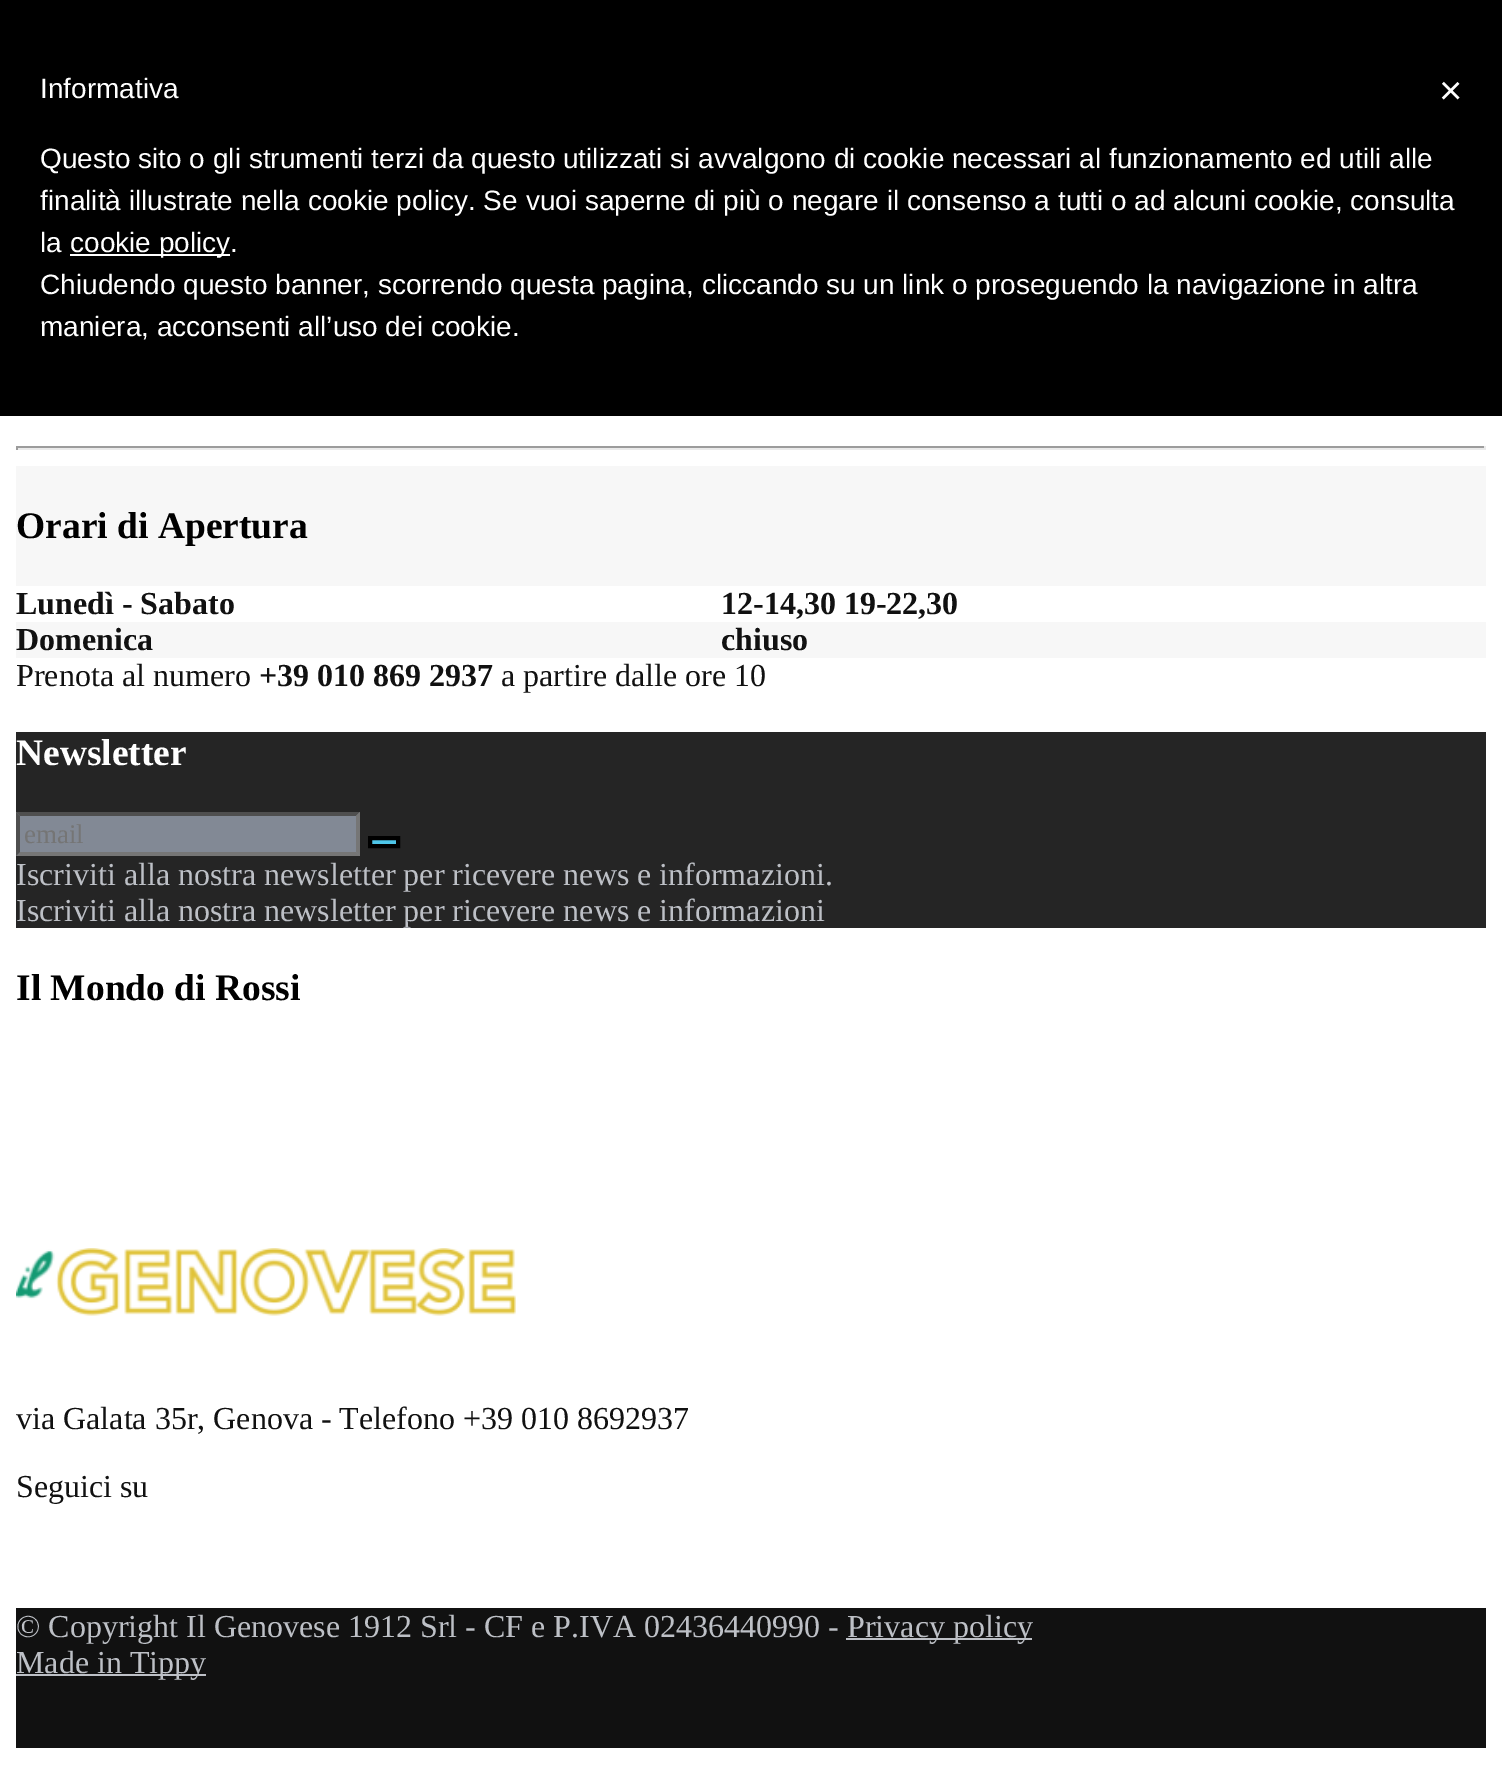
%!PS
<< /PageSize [1502 1780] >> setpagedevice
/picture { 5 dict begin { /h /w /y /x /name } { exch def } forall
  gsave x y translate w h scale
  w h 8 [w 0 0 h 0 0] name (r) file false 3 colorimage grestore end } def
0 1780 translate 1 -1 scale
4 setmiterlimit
1 setgray
0 0 1502 1780 rectfill
0 setgray
0 0 1502 416 rectfill
/LiberationSans-Regular [28 0 0 -28 0 0] selectfont
1 setgray
40 98 moveto (Informativa) show
40 168 moveto (Questo sito o gli strumenti terzi da questo utilizzati si avvalgono di cookie necessari al funzionamento ed utili alle) show
40 210 moveto (finalità illustrate nella cookie policy. Se vuoi saperne di più o negare il consenso a tutti o ad alcuni cookie, consulta) show
40 252 moveto (la) show
70 254 160 2 rectfill
70 252 moveto (cookie policy.) show
40 294 moveto (Chiudendo questo banner, scorrendo questa pagina, cliccando su un link o proseguendo la navigazione in altra) show
40 336 moveto (maniera, acconsenti all’uso dei cookie.) show
/LiberationSans-Regular [40 0 0 -40 0 0] selectfont
1439 104 moveto (×) show
0.612 setgray
16 446 1470 2 rectfill
0.918 setgray
1484 446 2 4 rectfill
16 448 1470 2 rectfill
0.612 setgray
16 446 2 4 rectfill
0.969 setgray
16 466 1470 120 rectfill
/LiberationSerif-Bold [37.5 0 0 -37.5 0 0] selectfont
0 setgray
16 538 moveto (Orari di Apertura) show
/LiberationSerif-Bold [32 0 0 -32 0 0] selectfont
0.067 setgray
16 614 moveto (Lunedì - Sabato) show
721 614 moveto (12-14,30 19-22,30) show
0.969 setgray
16 622 1470 36 rectfill
0.067 setgray
16 650 moveto (Domenica) show
721 650 moveto (chiuso) show
/LiberationSerif-Regular [32 0 0 -32 0 0] selectfont
16 686 moveto (Prenota al numero) show
/LiberationSerif-Bold [32 0 0 -32 0 0] selectfont
259 686 moveto (+39 010 869 2937) show
/LiberationSerif-Regular [32 0 0 -32 0 0] selectfont
501 686 moveto (a partire dalle ore 10) show
0.145 setgray
16 732 1470 196 rectfill
/LiberationSerif-Bold [37.5 0 0 -37.5 0 0] selectfont
1 setgray
16 765 moveto (Newsletter) show
0.51 0.537 0.584 setrgbcolor
16 812 344 44 rectfill
0.31 setgray
newpath 16 812 moveto 360 812 lineto 356 816 lineto 20 816 lineto closepath fill
0.463 setgray
newpath 360 812 moveto 360 856 lineto 356 852 lineto 356 816 lineto closepath fill
newpath 360 856 moveto 16 856 lineto 20 852 lineto 356 852 lineto closepath fill
0.31 setgray
newpath 16 856 moveto 16 812 lineto 20 816 lineto 20 852 lineto closepath fill
/LiberationSerif-Regular [27 0 0 -27 0 0] selectfont
0.459 setgray
24 843 moveto (email) show
0.306 0.776 0.914 setrgbcolor
newpath 370 838 moveto 398 838 lineto 398 846 lineto 370 846 lineto closepath gsave fill grestore
0 setgray
4 setlinewidth
stroke
/LiberationSerif-Regular [32 0 0 -32 0 0] selectfont
0.741 0.753 0.776 setrgbcolor
16 885 moveto (Iscriviti alla nostra newsletter per ricevere news e informazioni.) show
16 921 moveto (Iscriviti alla nostra newsletter per ricevere news e informazioni) show
/LiberationSerif-Bold [37.5 0 0 -37.5 0 0] selectfont
0 setgray
16 1000 moveto (Il Mondo di Rossi) show
(img1.rgb) 16 1248 500 68 picture
/LiberationSerif-Regular [32 0 0 -32 0 0] selectfont
0.067 setgray
16 1429 moveto (via Galata 35r, Genova - Telefono +39 010 8692937) show
16 1497 moveto (Seguici su) show
16 1608 1470 140 rectfill
0.741 0.753 0.776 setrgbcolor
16 1637 moveto (© Copyright Il Genovese 1912 Srl - CF e P.IVA 02436440990 -) show
846 1638 186 2 rectfill
847 1637 moveto (Privacy policy) show
16 1674 190 2 rectfill
16 1673 moveto (Made in Tippy) show
showpage
